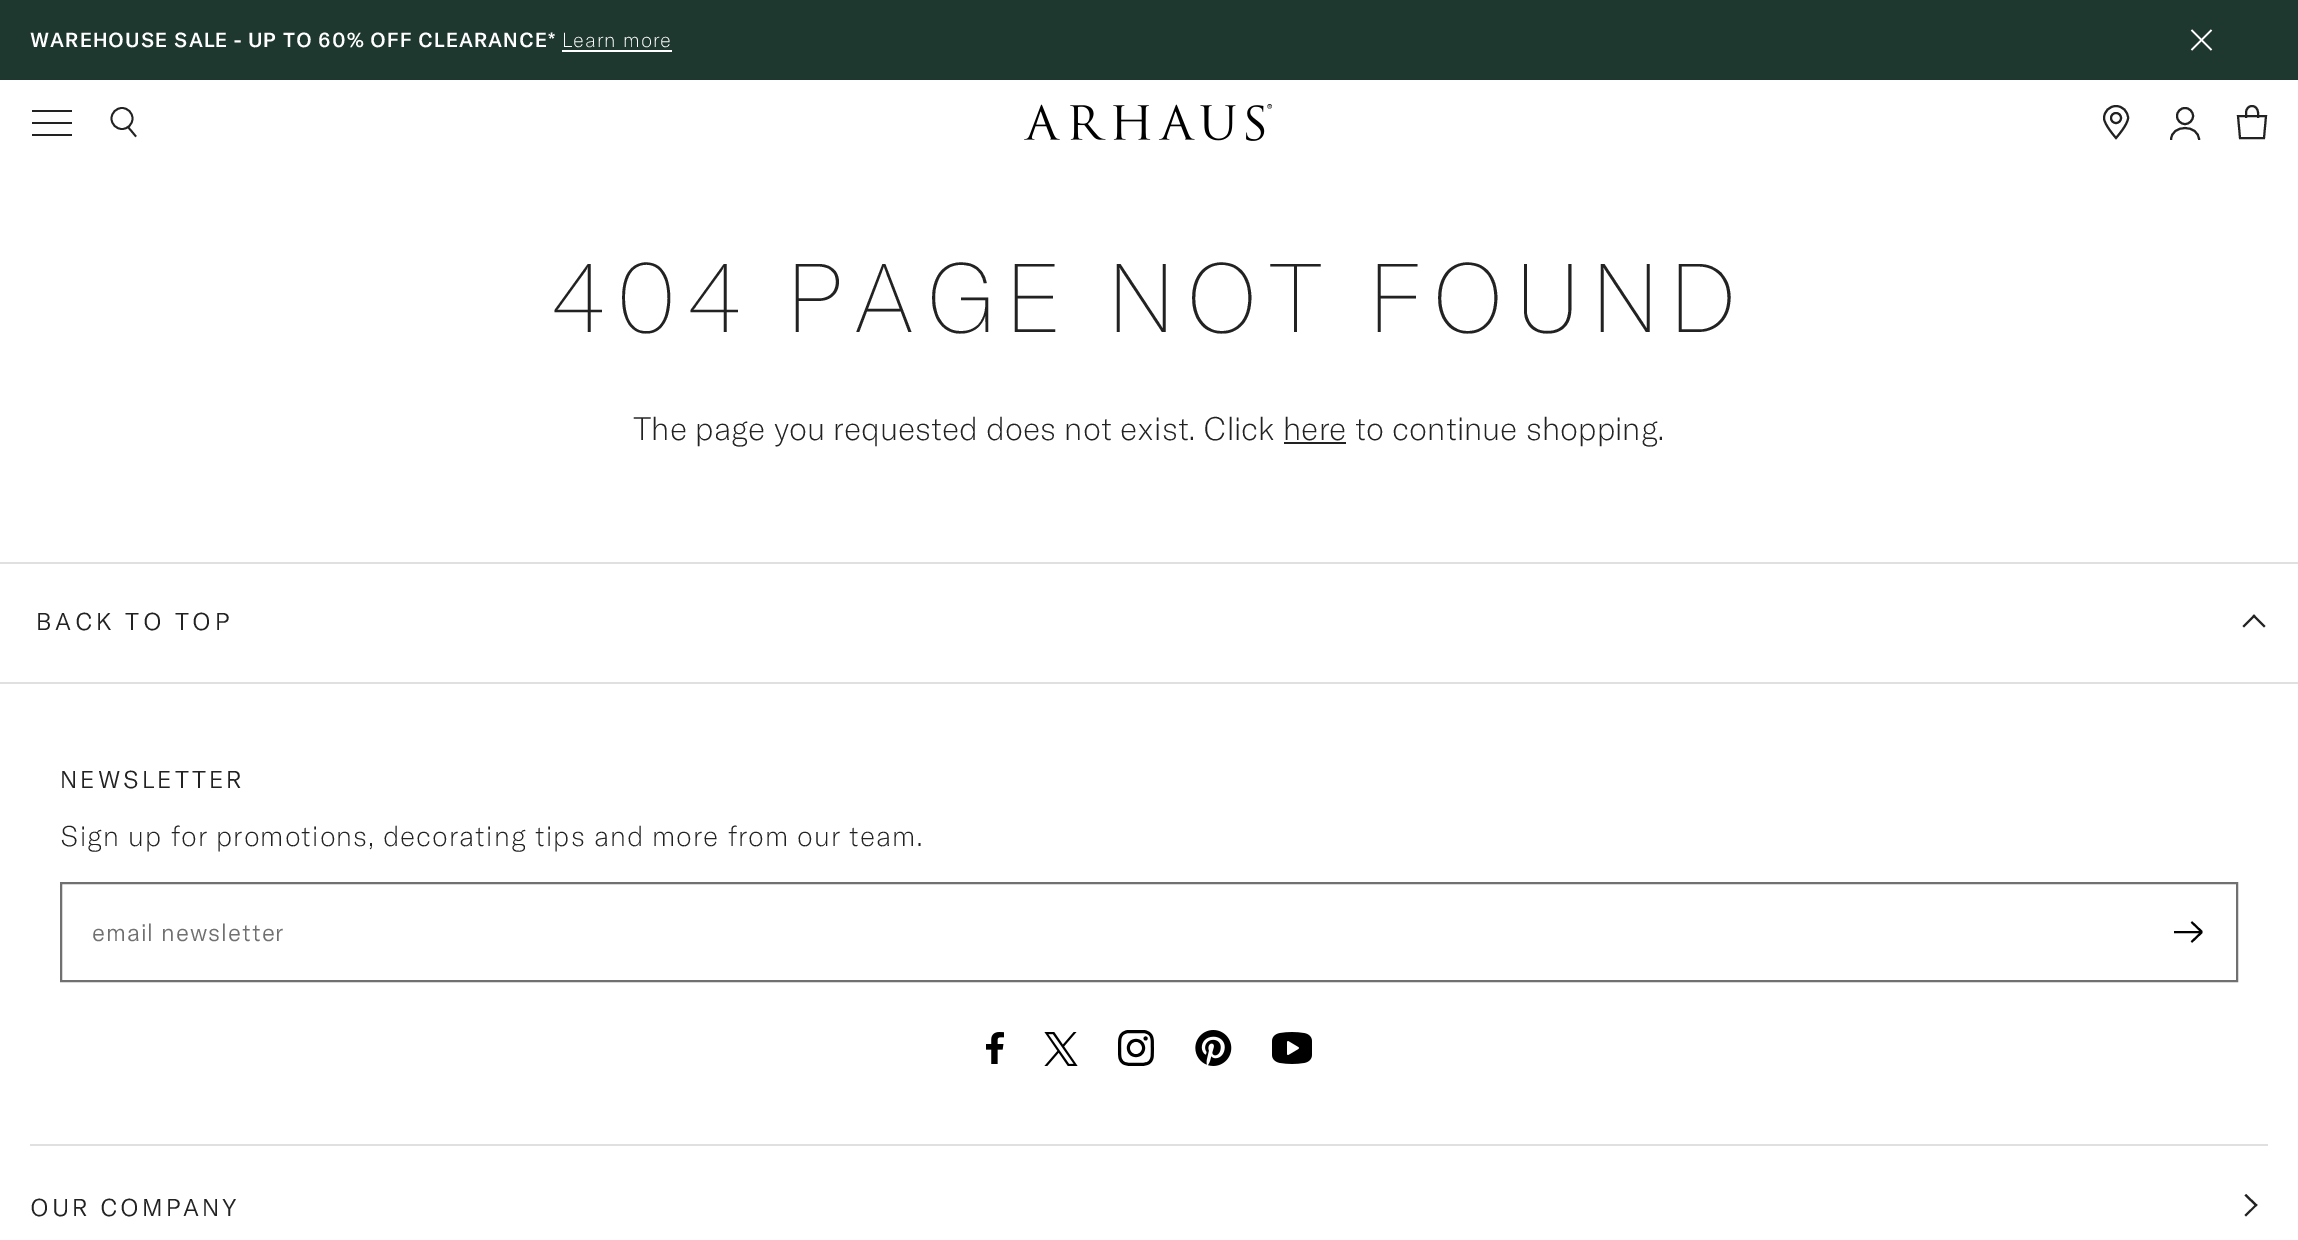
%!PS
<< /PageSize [2298 1240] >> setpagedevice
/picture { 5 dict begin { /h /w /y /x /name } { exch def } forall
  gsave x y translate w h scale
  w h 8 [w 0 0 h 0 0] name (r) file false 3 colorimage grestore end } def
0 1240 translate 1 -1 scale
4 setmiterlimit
1 setgray
0 0 2298 1240 rectfill
0.118 0.216 0.184 setrgbcolor
0 0 2298 80 rectfill
/GTAmerica-Medium [20 0 0 -20 0 0] selectfont
1 setgray
30 47 moveto 1 0 (WAREHOUSE SALE - UP TO 60% OFF CLEARANCE*) ashow
/GTAmerica-Thin [20 0 0 -20 0 0] selectfont
562 47 moveto 1 0 (Learn more) ashow
562 50 110 2 rectfill
1.5 setlinewidth
newpath 2211.5 30 moveto 2191.5 50 lineto 2191.5 30 moveto 2211.5 50 lineto stroke
0.133 setgray
32 110 40 2 rectfill
32 122 40 2 rectfill
32 134 40 2 rectfill
1.8 setlinewidth
newpath 122 118.5 10.5 0 360 arc closepath stroke
newpath 128 127 moveto 136 136.5 lineto stroke
(img1.rgb) 1024 104 248 37 picture
2 setlinewidth
newpath 2128 118 moveto 2128 124.5 2116 138 2116 138 curveto 2116 138 2104 124.5 2104 118 curveto 2104 111.5 2109.5 106 2116 106 curveto 2122.5 106 2128 111.5 2128 118 curveto closepath stroke
newpath 2116 118 5 0 360 arc closepath stroke
newpath 2185 116 8 0 360 arc closepath stroke
newpath 2171 140 moveto 2171 124 2199 124 2199 140 curveto stroke
newpath 2258 118 moveto 2258 113 lineto 2258 109 2255.5 106 2252 106 curveto 2248.5 106 2246 109 2246 113 curveto 2246 118 lineto 2238 116 moveto 2266 116 lineto 2264 138 lineto 2240 138 lineto closepath stroke
/GTAmerica-ExtraLight [96 0 0 -96 0 0] selectfont
551 332 moveto 9.6 0 (404 PAGE NOT FOUND) ashow
/GTAmerica-Thin [32 0 0 -32 0 0] selectfont
633 440 moveto (The page you requested does not exist. Click here to continue shopping.) show
1284 442 62 2 rectfill
0.878 setgray
0 562 2298 2 rectfill
/GTAmerica-Light [24 0 0 -24 0 0] selectfont
0.133 setgray
36 630 moveto 3.6 0 (BACK TO TOP) ashow
newpath 2255.5 616 moveto 2244 627.5 lineto 2242.5 626 lineto 2254 614.5 lineto closepath fill
newpath 2265.5 626 moveto 2264 627.5 lineto 2252.5 616 lineto 2254 614.5 lineto closepath fill
0.878 setgray
0 682 2298 2 rectfill
0.133 setgray
60 788 moveto 3 0 (NEWSLETTER) ashow
/GTAmerica-Thin [28 0 0 -28 0 0] selectfont
60 846 moveto 1 0 (Sign up for promotions, decorating tips and more from our team.) ashow
0.439 setgray
61 883 2176 98 rectstroke
/GTAmerica-Light [24 0 0 -24 0 0] selectfont
92 941 moveto 1 0 (email newsletter) ashow
0 setgray
newpath 2191.5 922 moveto 2202 932 lineto 2191.5 942 moveto 2202 932 lineto 2202 932 moveto 2174 932 lineto stroke
(img2.rgb) 986 1032 18 32 picture
(img3.rgb) 1044 1032 34 34 picture
(img4.rgb) 1118 1030 36 36 picture
(img5.rgb) 1195 1030 37 36 picture
(img6.rgb) 1272 1032 40 32 picture
0.878 setgray
30 1144 2238 2 rectfill
0.133 setgray
30 1216 moveto 3 0 (OUR COMPANY) ashow
newpath 2256 1206.5 moveto 2244.5 1195.5 lineto 2246 1194 lineto 2257.5 1205 lineto closepath fill
newpath 2246 1216.5 moveto 2244.5 1215 lineto 2256 1204 lineto 2257.5 1205 lineto closepath fill
showpage
